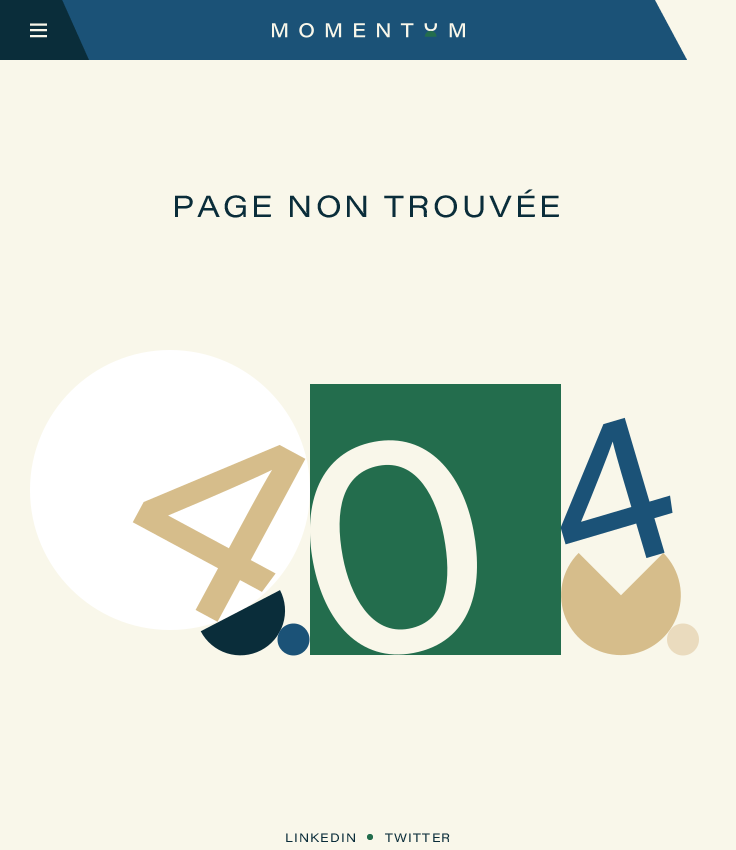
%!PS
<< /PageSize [736 850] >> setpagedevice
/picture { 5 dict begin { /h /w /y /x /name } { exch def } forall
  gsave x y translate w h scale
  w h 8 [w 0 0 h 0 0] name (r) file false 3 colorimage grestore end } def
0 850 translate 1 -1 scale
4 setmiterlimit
0.976 0.969 0.918 setrgbcolor
0 0 736 850 rectfill
0.106 0.322 0.467 setrgbcolor
62 0 626 60 rectfill
gsave
0 0 736 60 rectclip
0.976 0.969 0.918 setrgbcolor
newpath 623 -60 moveto 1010 662 lineto 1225 547 lineto 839 -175 lineto closepath fill
0.039 0.176 0.227 setrgbcolor
newpath 37 -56 moveto -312 100 -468 510 -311 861 curveto -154 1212 256 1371 605 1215 curveto closepath fill
grestore
0.976 0.969 0.918 setrgbcolor
2 setlinewidth
[50 50] 0 setdash
newpath 30 24.5 moveto 47 24.5 lineto 30 30 moveto 47 30 lineto 30 36 moveto 47 36 lineto stroke
(img1.rgb) 272 23 193 15 picture
/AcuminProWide-Regular [30 0 0 -30 0 0] selectfont
0.039 0.176 0.227 setrgbcolor
172 217 moveto 3 0 (PAGE NON TROUVÉE) ashow
(img2.rgb) 30 350 669 306 picture
/AcuminProWide-Regular [12 0 0 -12 0 0] selectfont
285 842 moveto 1.25 0 (LINKEDIN) ashow
0.137 0.427 0.302 setrgbcolor
newpath 370 837 3 0 360 arc closepath fill
0.039 0.176 0.227 setrgbcolor
385 842 moveto 1.25 0 (TWITTER) ashow
showpage
